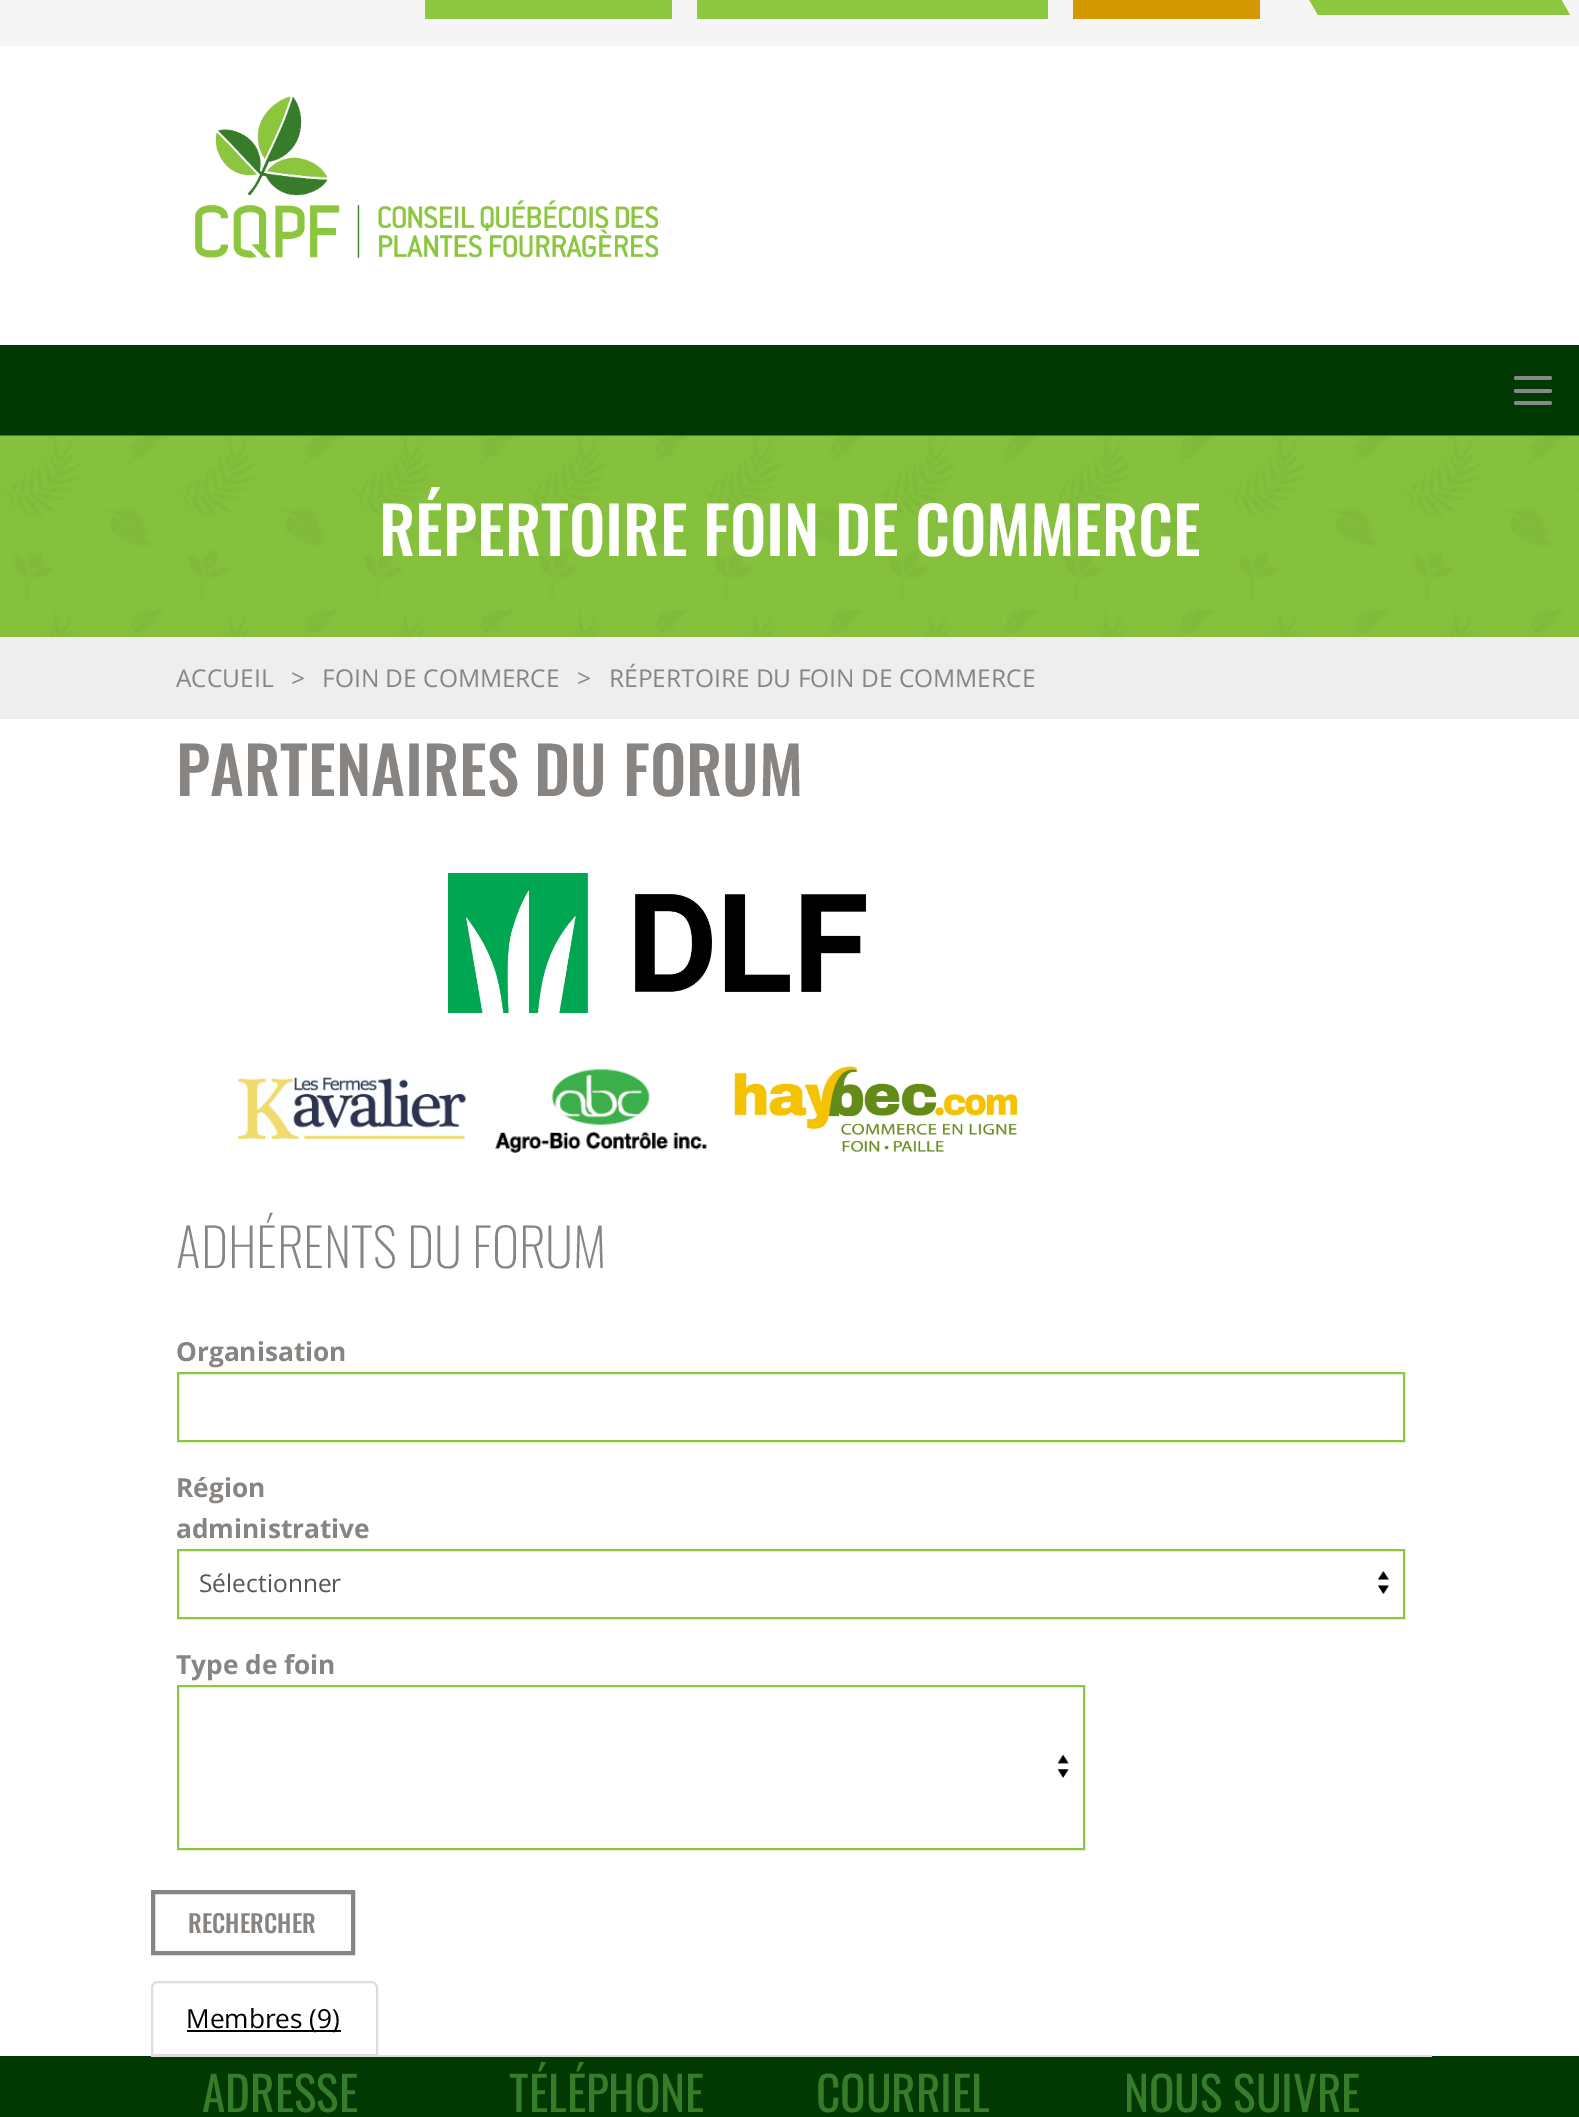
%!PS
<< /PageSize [1579 2117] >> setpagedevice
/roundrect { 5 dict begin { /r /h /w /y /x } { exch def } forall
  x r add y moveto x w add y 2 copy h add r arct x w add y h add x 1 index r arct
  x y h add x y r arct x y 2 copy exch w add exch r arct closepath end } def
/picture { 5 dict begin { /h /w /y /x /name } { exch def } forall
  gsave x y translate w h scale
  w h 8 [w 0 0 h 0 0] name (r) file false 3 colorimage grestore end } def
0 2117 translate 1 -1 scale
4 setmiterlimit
1 setgray
0 0 1579 2117 rectfill
0.961 setgray
0 0 1579 46 rectfill
0.553 0.776 0.247 setrgbcolor
425 0 247 19 rectfill
697 0 351 19 rectfill
0.831 0.596 0 setrgbcolor
1073 0 187 19 rectfill
0.553 0.776 0.247 setrgbcolor
newpath 1286 -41 moveto 1538 -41 lineto 1570 15 lineto 1318 15 lineto closepath fill
(img1.rgb) 195 96 463 162 picture
0.008 0.224 0.008 setrgbcolor
0 345 1579 91 rectfill
0.533 setgray
1514 376 38 4 2 roundrect fill
1514 389 38 4 2 roundrect fill
1514 401 38 4 2 roundrect fill
(img2.rgb) 0 435 1579 202 picture
/Oswald-Medium [64.75 0 0 -64.75 0 0] selectfont
1 setgray
379 556 moveto (RÉPERTOIRE FOIN DE COMMERCE) show
0.933 setgray
0 637 1579 82 rectfill
/OpenSans-Regular [24.5 0 0 -24.5 0 0] selectfont
0.529 0.518 0.506 setrgbcolor
176 687 moveto (ACCUEIL) show
291 687 moveto (>) show
322 687 moveto (FOIN DE COMMERCE) show
577 687 moveto (>) show
609 687 moveto (RÉPERTOIRE DU FOIN DE COMMERCE) show
/Oswald-Medium [64.75 0 0 -64.75 0 0] selectfont
176 796 moveto (PARTENAIRES DU FORUM) show
(img3.rgb) 448 873 419 140 picture
(img4.rgb) 238 1077 228 62 picture
(img5.rgb) 495 1069 212 84 picture
(img6.rgb) 734 1066 284 87 picture
/Oswald-ExtraLight [52.5 0 0 -52.5 0 0] selectfont
176 1268 moveto (ADHÉRENTS DU FORUM) show
/OpenSans-Bold [26.25 0 0 -26.25 0 0] selectfont
176 1361 moveto (Organisation) show
0.553 0.776 0.247 setrgbcolor
2 setlinewidth
178 1373 1226 68 rectstroke
0.529 0.518 0.506 setrgbcolor
176 1497 moveto (Région) show
176 1538 moveto (administrative) show
(img7.rgb) 1378 1571 11 23 picture
0.553 0.776 0.247 setrgbcolor
178 1550 1226 68 rectstroke
/OpenSans-Regular [24.5 0 0 -24.5 0 0] selectfont
0.333 setgray
199 1592 moveto (Sélectionner) show
/OpenSans-Bold [26.25 0 0 -26.25 0 0] selectfont
0.529 0.518 0.506 setrgbcolor
176 1674 moveto (Type de foin) show
(img8.rgb) 1057 1755 12 23 picture
0.553 0.776 0.247 setrgbcolor
178 1686 906 163 rectstroke
0.529 0.518 0.506 setrgbcolor
4 setlinewidth
153 1892 200 61 rectstroke
/Oswald-Medium [24.5 0 0 -24.5 0 0] selectfont
188 1933 moveto (RECHERCHER) show
0.008 0.224 0.008 setrgbcolor
0 2056 1579 61 rectfill
0.867 setgray
151 2055 1281 2 rectfill
2 setlinewidth
newpath 158 1982 moveto 371 1982 lineto 374.5 1982 377 1984.5 377 1988 curveto 377 2055 lineto 152 2055 lineto 152 1988 lineto 152 1984.5 154.5 1982 158 1982 curveto closepath stroke
0 setgray
187 2030 154 2 rectfill
/OpenSans-Regular [26.25 0 0 -26.25 0 0] selectfont
186 2028 moveto (Membres \(9\)) show
/Oswald-Regular [47.25 0 0 -47.25 0 0] selectfont
0.212 0.486 0.169 setrgbcolor
202 2112 moveto (ADRESSE) show
509 2112 moveto (TÉLÉPHONE) show
816 2112 moveto (COURRIEL) show
1124 2112 moveto (NOUS SUIVRE) show
showpage
